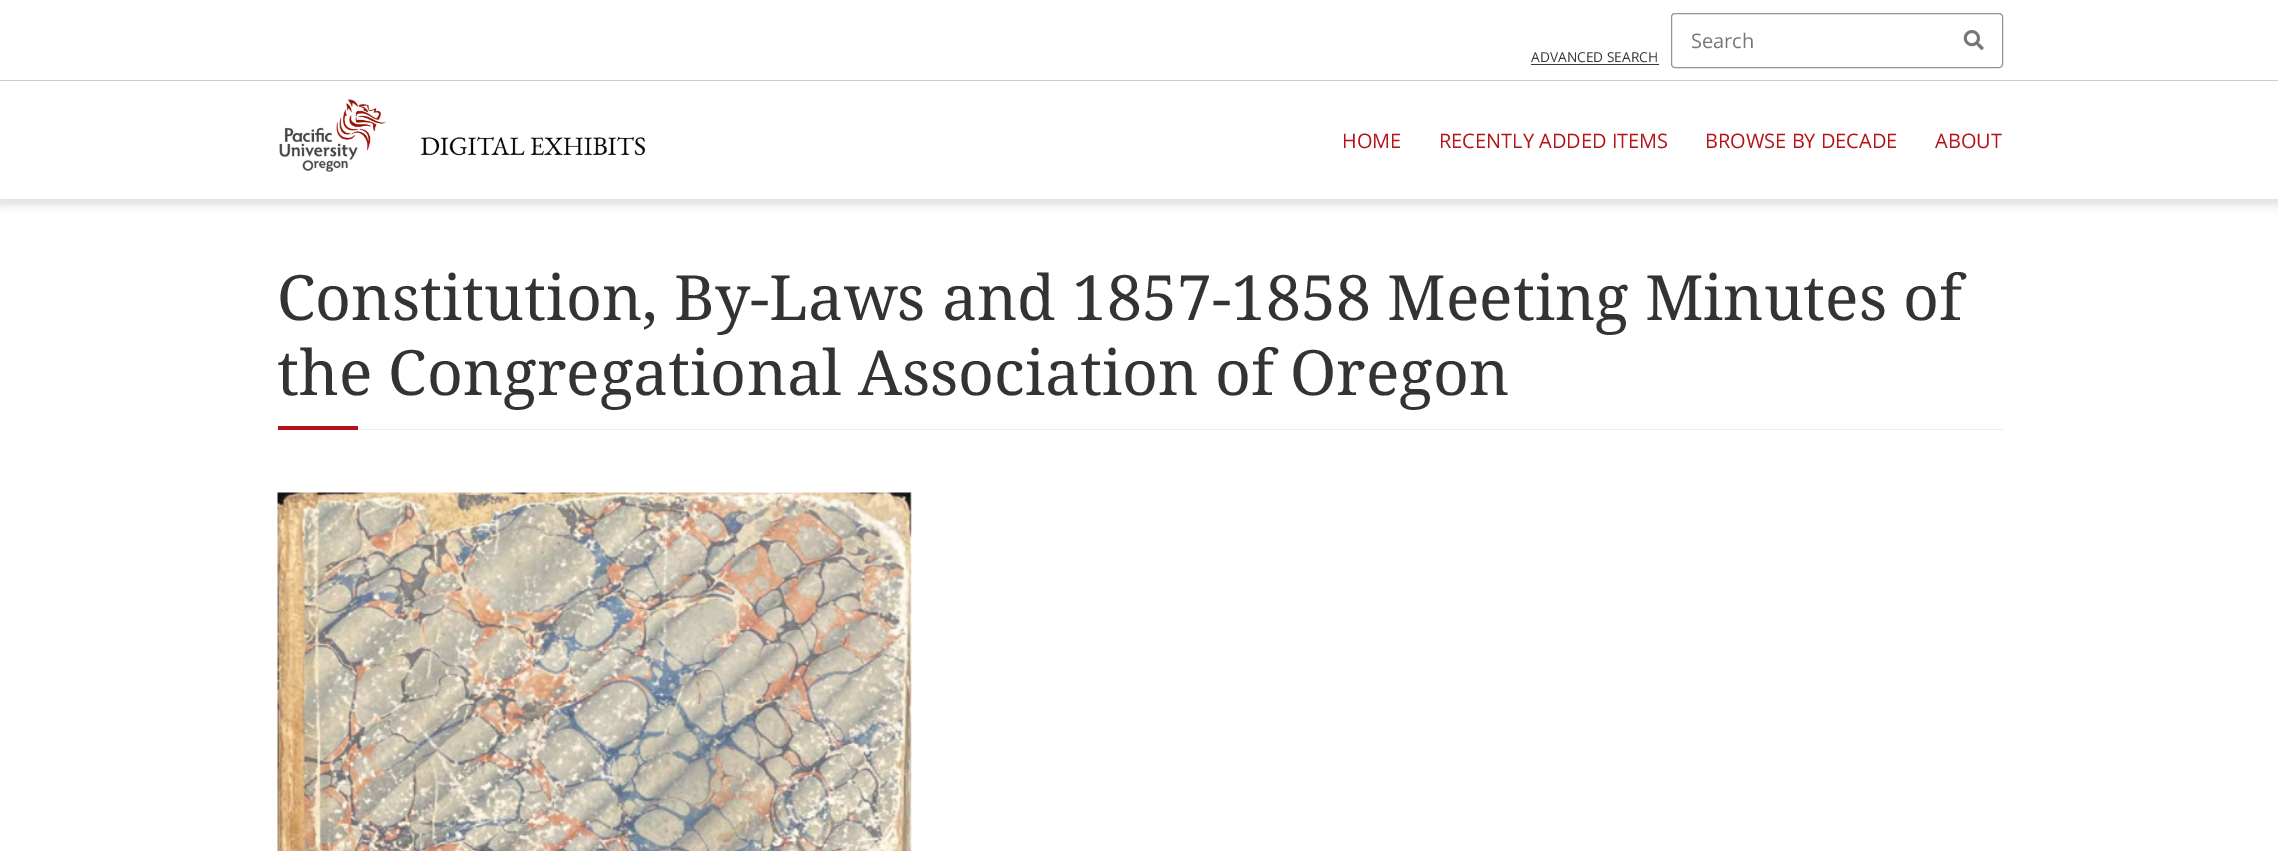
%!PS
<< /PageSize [2278 851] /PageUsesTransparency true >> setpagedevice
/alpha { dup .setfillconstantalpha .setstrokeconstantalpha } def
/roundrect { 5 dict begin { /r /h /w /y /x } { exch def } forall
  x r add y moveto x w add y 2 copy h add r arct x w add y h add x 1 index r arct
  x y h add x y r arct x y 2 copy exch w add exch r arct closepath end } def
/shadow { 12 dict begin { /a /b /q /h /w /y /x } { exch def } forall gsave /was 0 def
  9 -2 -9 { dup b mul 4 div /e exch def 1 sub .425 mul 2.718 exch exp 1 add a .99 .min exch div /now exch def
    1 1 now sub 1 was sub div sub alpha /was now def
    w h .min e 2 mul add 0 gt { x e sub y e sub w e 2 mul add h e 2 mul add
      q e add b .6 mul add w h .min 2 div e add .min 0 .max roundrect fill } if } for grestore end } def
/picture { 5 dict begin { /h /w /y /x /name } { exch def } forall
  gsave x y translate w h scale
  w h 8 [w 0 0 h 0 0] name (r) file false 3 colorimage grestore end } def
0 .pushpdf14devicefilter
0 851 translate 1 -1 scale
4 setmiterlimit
1 setgray
0 0 2278 851 rectfill
0 setgray
-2 3 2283 203 0 4 0.11 shadow
1 setgray
0 0 2278 199 rectfill
0.58 setgray
1671.5 13.5 331 54 3.5 roundrect stroke
/OpenSans-Regular [20 0 0 -20 0 0] selectfont
0.463 setgray
1691 48 moveto (Search) show
(img1.rgb) 1963 30 21 20 picture
/OpenSans-Regular [13.75 0 0 -13.75 0 0] selectfont
0.204 0.227 0.251 setrgbcolor
1531 62 moveto (ADVANCED SEARCH) show
1531 64 128 1 rectfill
0.8 setgray
0 80 2278 1 rectfill
(img2.rgb) 279 98 367 74 picture
/OpenSans-Regular [20 0 0 -20 0 0] selectfont
0.71 0.071 0.09 setrgbcolor
1342 148 moveto (HOME) show
1439 148 moveto (RECENTLY ADDED ITEMS) show
1705 148 moveto (BROWSE BY DECADE) show
1935 148 moveto (ABOUT) show
0.925 setgray
358 429 1645 1 rectfill
/NotoSerif-Regular [62.5 0 0 -62.5 0 0] selectfont
0.2 setgray
277 320 moveto (Constitution, By-Laws and 1857-1858 Meeting Minutes of) show
277 395 moveto (the Congregational Association of Oregon) show
0.71 0.071 0.09 setrgbcolor
278 426 80 4 rectfill
(img3.rgb) 277 492 635 359 picture
.poppdf14devicefilter showpage
